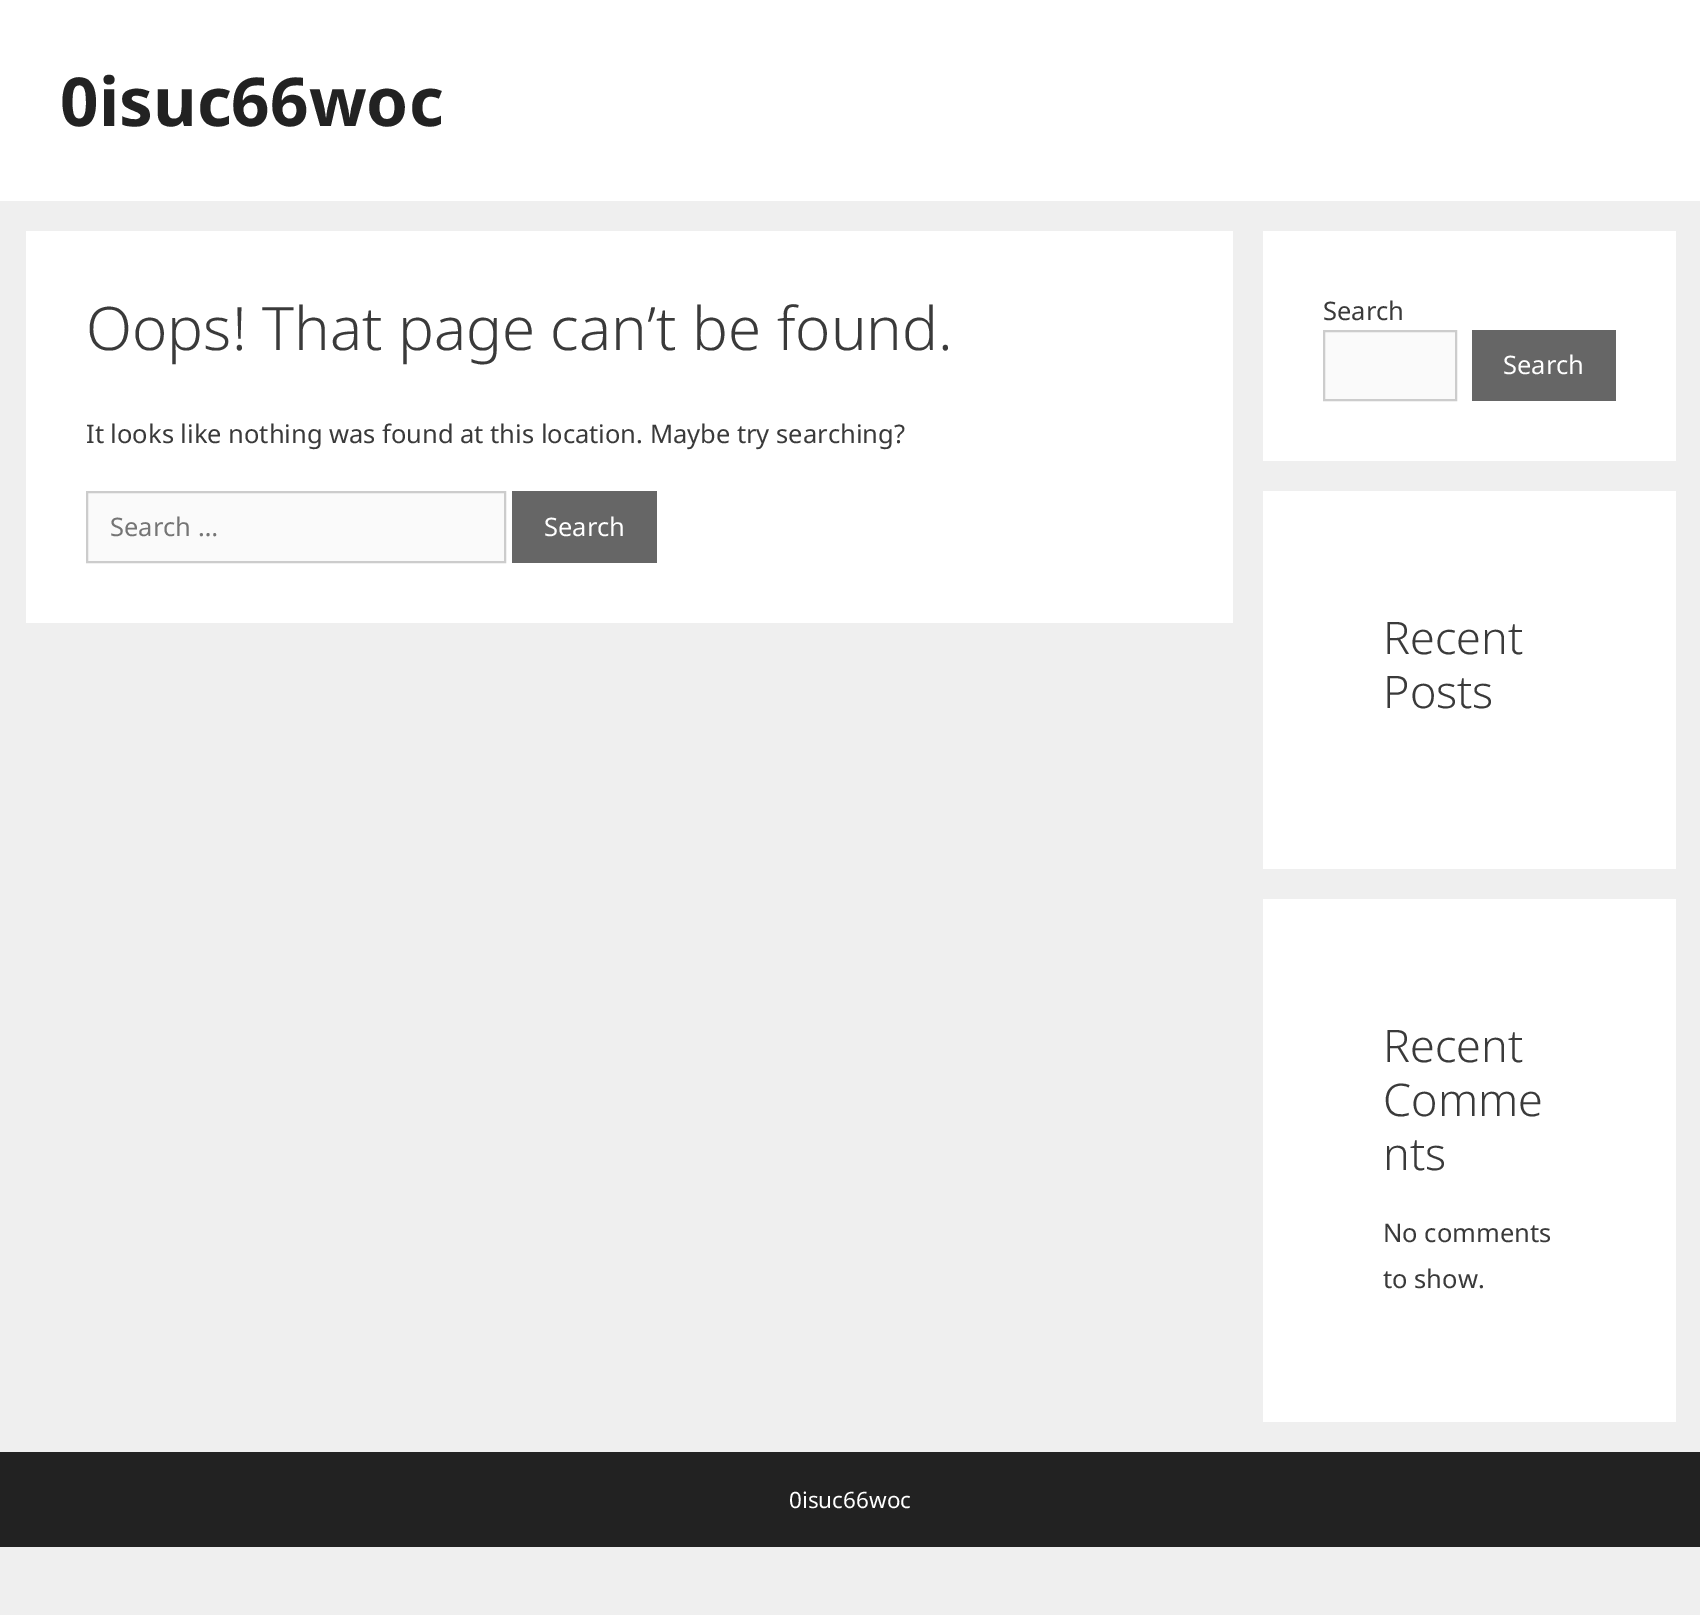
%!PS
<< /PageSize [1700 1615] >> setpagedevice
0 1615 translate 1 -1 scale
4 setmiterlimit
0.937 setgray
0 0 1700 1615 rectfill
1 setgray
0 0 1700 201 rectfill
/NotoSans-Bold [67.5 0 0 -67.5 0 0] selectfont
0.133 setgray
60 126 moveto (0isuc66woc) show
1 setgray
26 231 1207 392 rectfill
/NotoSans-Light [60 0 0 -60 0 0] selectfont
0.227 setgray
86 350 moveto (Oops! That page can’t be found.) show
/NotoSans-Regular [25.5 0 0 -25.5 0 0] selectfont
86 443 moveto (It looks like nothing was found at this location. Maybe try searching?) show
0.98 setgray
newpath 87 492 moveto 505 492 lineto 505 562 lineto 87 562 lineto closepath gsave fill grestore
0.8 setgray
2 setlinewidth
stroke
0.459 setgray
110 536 moveto (Search …) show
0.4 setgray
512 491 145 72 rectfill
1 setgray
544 536 moveto (Search) show
1263 231 413 230 rectfill
0.227 setgray
1323 320 moveto (Search) show
0.98 setgray
newpath 1324 331 moveto 1456 331 lineto 1456 400 lineto 1324 400 lineto closepath gsave fill grestore
0.8 setgray
stroke
0.4 setgray
1472 330 144 71 rectfill
1 setgray
1503 374 moveto (Search) show
1263 491 413 378 rectfill
/NotoSans-Light [45 0 0 -45 0 0] selectfont
0.227 setgray
1383 654 moveto (Recent) show
1383 708 moveto (Posts) show
1 setgray
1263 899 413 523 rectfill
0.227 setgray
1383 1062 moveto (Recent) show
1383 1116 moveto (Comme) show
1383 1170 moveto (nts) show
/NotoSans-Regular [25.5 0 0 -25.5 0 0] selectfont
1383 1242 moveto (No comments) show
1383 1288 moveto (to show.) show
0.133 setgray
0 1452 1700 95 rectfill
/NotoSans-Regular [22.5 0 0 -22.5 0 0] selectfont
1 setgray
789 1508 moveto (0isuc66woc) show
showpage
